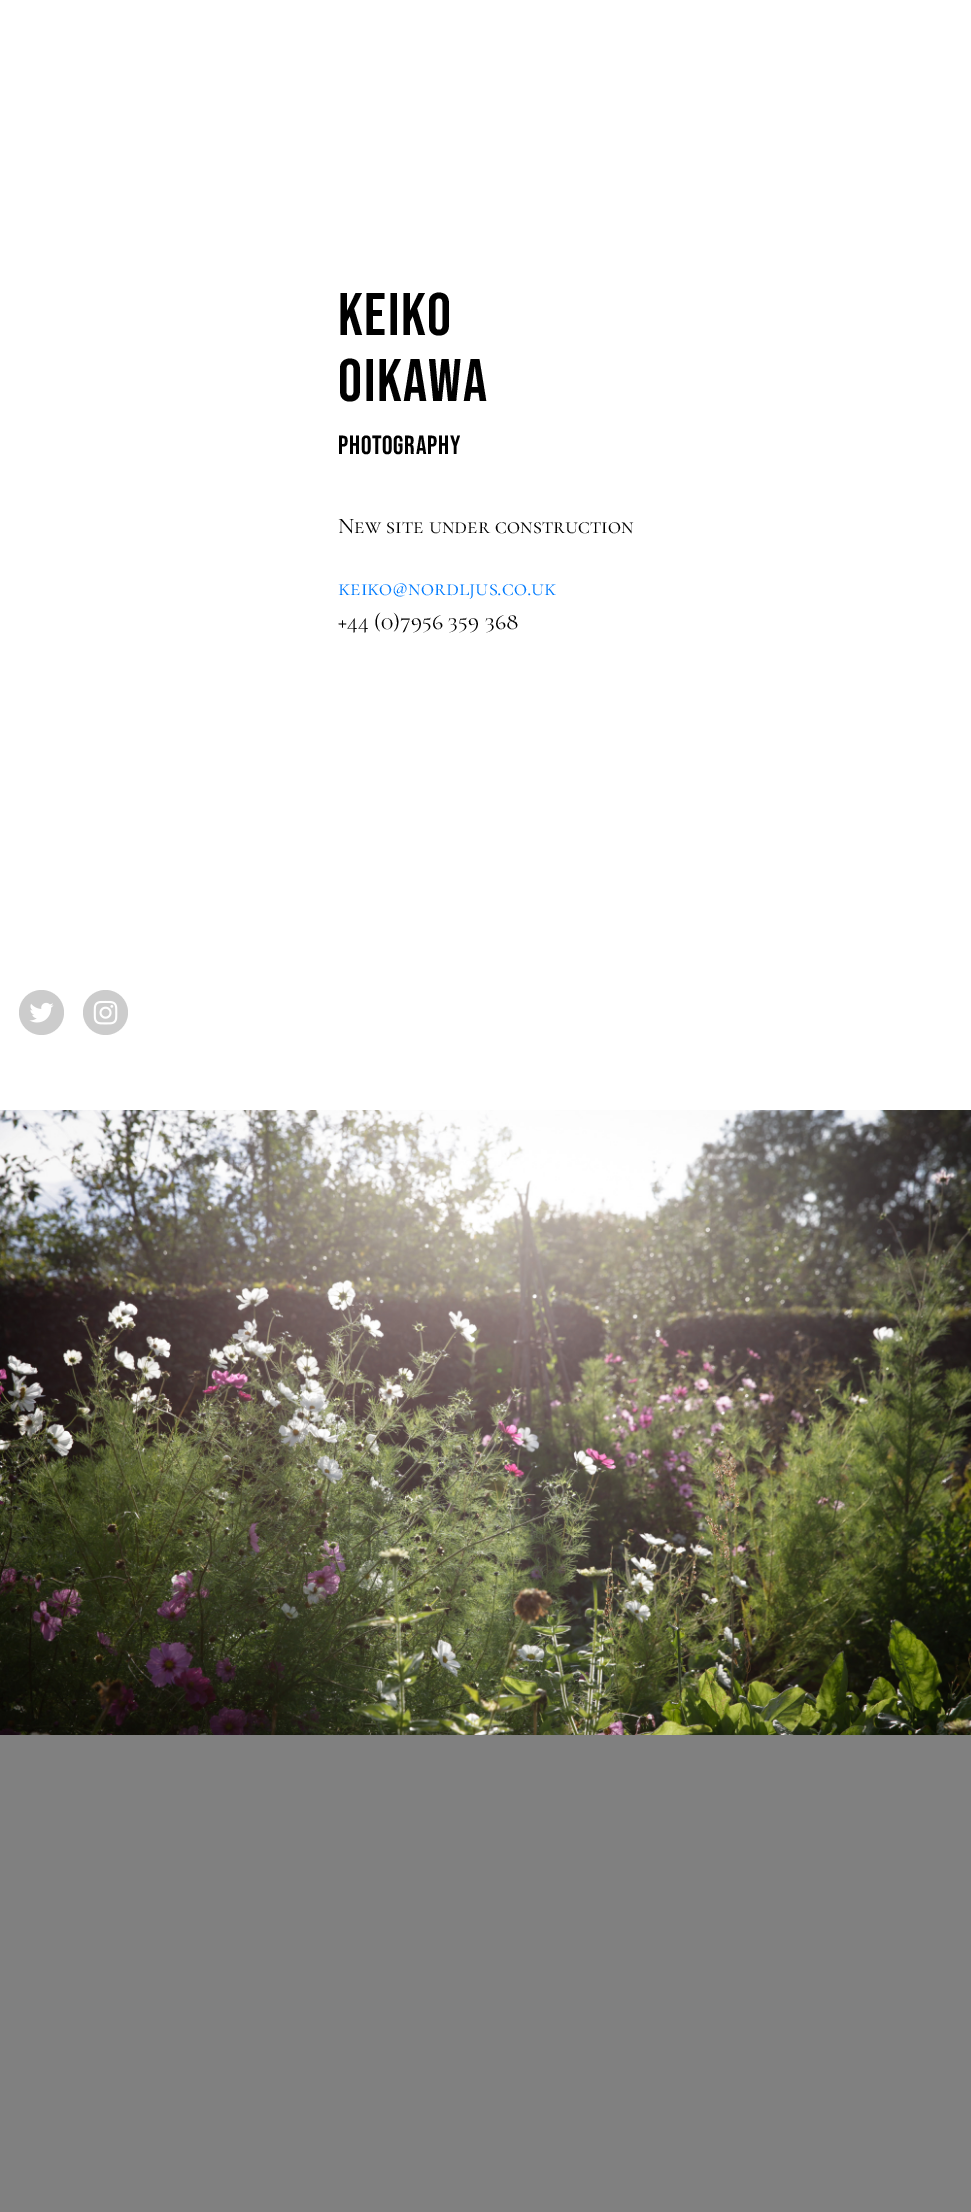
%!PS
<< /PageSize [971 2212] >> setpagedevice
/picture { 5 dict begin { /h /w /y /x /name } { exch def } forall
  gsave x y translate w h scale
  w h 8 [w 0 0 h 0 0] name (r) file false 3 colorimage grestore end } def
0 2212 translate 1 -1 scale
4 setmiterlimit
0.502 setgray
0 0 971 2212 rectfill
1 setgray
0 0 971 1110 rectfill
/BebasNeue-Regular [60 0 0 -60 0 0] selectfont
0 setgray
338 335 moveto 1.5 0 (Keiko) ashow
338 401 moveto 1.5 0 (Oikawa) ashow
/BebasNeue-Regular [26.25 0 0 -26.25 0 0] selectfont
338 454 moveto 0.75 0 (Photography) ashow
/CormorantSC-Regular [22.5 0 0 -22.5 0 0] selectfont
338 533 moveto (New site under construction) show
0 0.482 1 setrgbcolor
338 595 moveto (keiko@nordljus.co.uk) show
0 setgray
338 629 moveto (+44 \(0\)7956 359 368) show
0.8 setgray
newpath 41.5 1012.5 22.5 0 360 arc closepath fill
(img1.rgb) 29 1002 25 21 picture
newpath 105.5 1012.5 22.5 0 360 arc closepath fill
(img2.rgb) 93 1000 25 25 picture
(img3.rgb) 0 1110 971 625 picture
showpage
